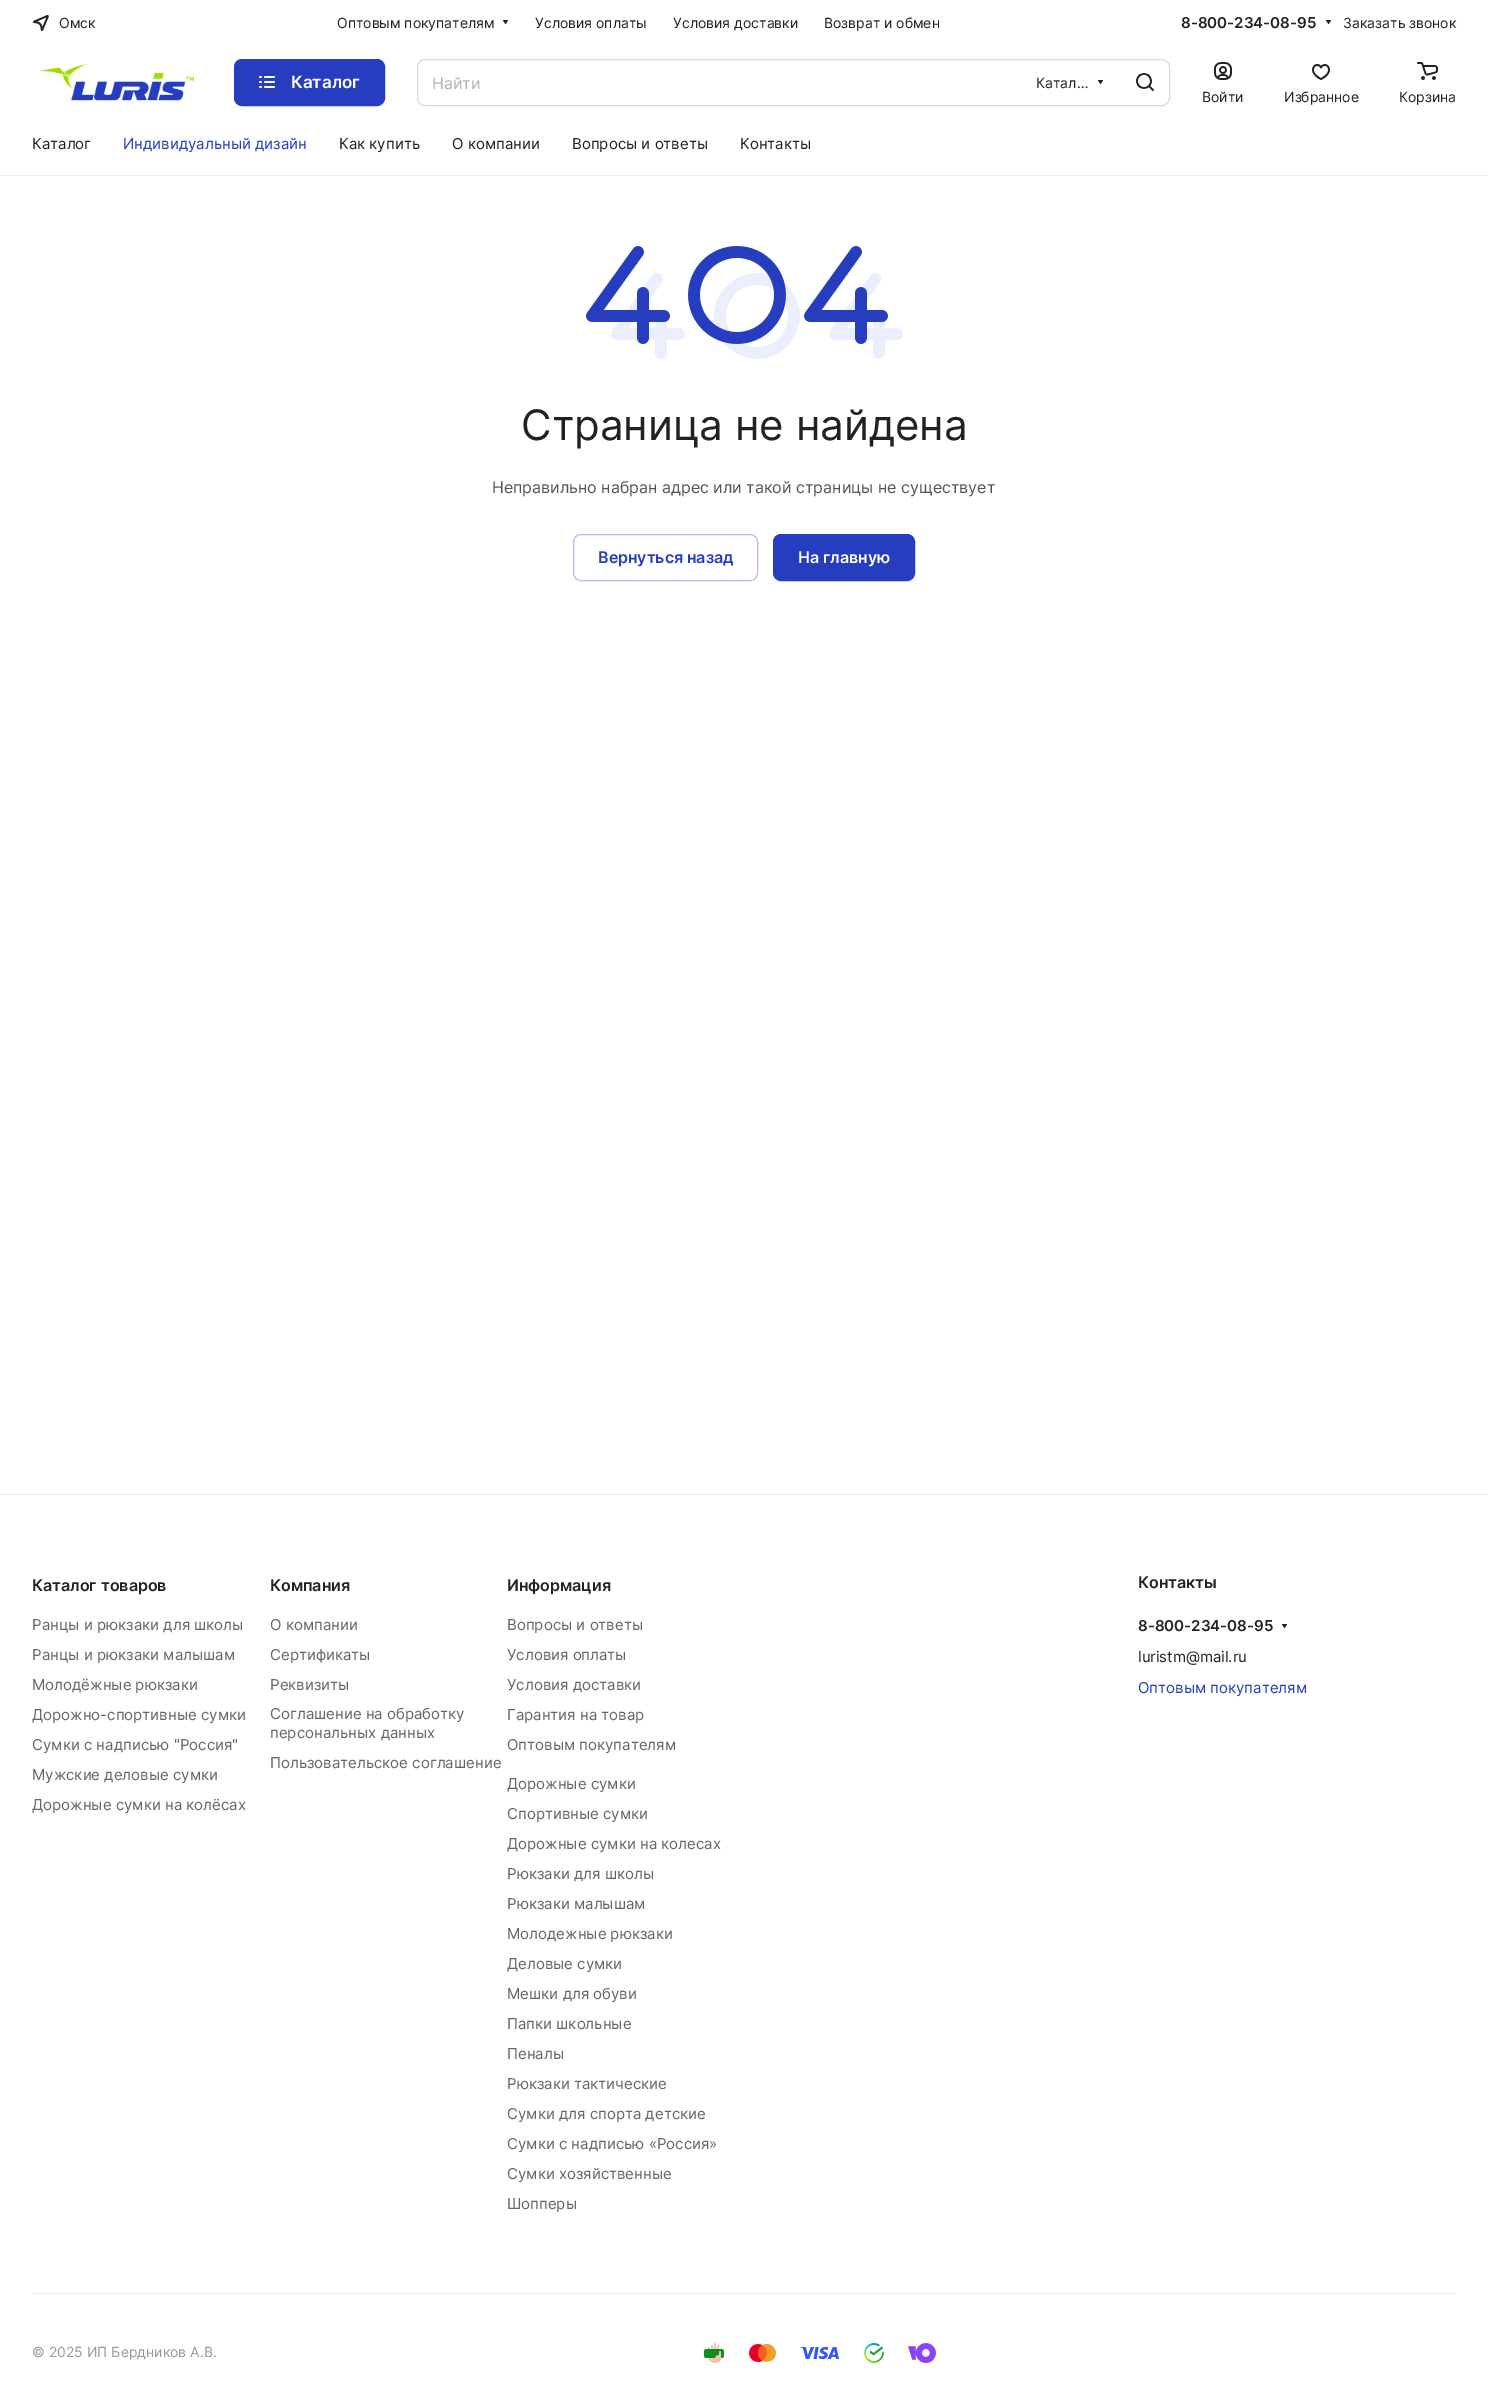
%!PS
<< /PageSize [1488 2408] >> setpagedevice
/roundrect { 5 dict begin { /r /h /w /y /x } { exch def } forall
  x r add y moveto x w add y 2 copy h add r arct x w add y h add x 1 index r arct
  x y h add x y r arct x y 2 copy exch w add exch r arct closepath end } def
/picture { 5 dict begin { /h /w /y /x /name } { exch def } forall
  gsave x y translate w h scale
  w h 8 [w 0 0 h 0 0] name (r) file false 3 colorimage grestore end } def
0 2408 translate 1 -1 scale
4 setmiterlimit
1 setgray
0 0 1488 2408 rectfill
0.929 setgray
0 175 1488 1 rectfill
(img1.rgb) 32 15 17 16 picture
/Inter-Regular [14 0 0 -14 0 0] selectfont
0.133 setgray
59 28 moveto (Омск) show
337 28 moveto (Оптовым покупателям) show
(img2.rgb) 503 20 5 4 picture
535 28 moveto (Условия оплаты) show
673 28 moveto (Условия доставки) show
824 28 moveto (Возврат и обмен) show
/Inter-SemiBold [15 0 0 -15 0 0] selectfont
1181 28 moveto (8-800-234-08-95) show
(img2.rgb) 1326 20 5 4 picture
/Inter-Regular [14 0 0 -14 0 0] selectfont
1343 28 moveto (Заказать звонок) show
(img3.rgb) 40 64 154 37 picture
0.145 0.239 0.745 setrgbcolor
234.5 59.5 150 46 7.5 roundrect gsave fill grestore
stroke
(img4.rgb) 259 76 16 12 picture
/Inter-SemiBold [17 0 0 -17 0 0] selectfont
1 setgray
291 88 moveto (Каталог) show
0.855 setgray
417.5 59.5 752 46 7.5 roundrect stroke
/Inter-Regular [16 0 0 -16 0 0] selectfont
0.698 setgray
432 89 moveto (Найти) show
/Inter-Regular [14 0 0 -14 0 0] selectfont
0.133 setgray
1036 88 moveto (Катал…) show
(img2.rgb) 1098 80 5 4 picture
(img5.rgb) 1136 73 18 18 picture
(img6.rgb) 1214 62 18 18 picture
1202 102 moveto (Войти) show
(img7.rgb) 1312 64 18 16 picture
1284 102 moveto (Избранное) show
(img8.rgb) 1417 62 21 18 picture
1399 102 moveto (Корзина) show
/Inter-Regular [15 0 0 -15 0 0] selectfont
32 149 moveto (Каталог) show
0.145 0.239 0.745 setrgbcolor
123 149 moveto (Индивидуальный дизайн) show
0.133 setgray
339 149 moveto (Как купить) show
452 149 moveto (О компании) show
572 149 moveto (Вопросы и ответы) show
740 149 moveto (Контакты) show
(img9.rgb) 586 246 317 113 picture
/Inter-Regular [42 0 0 -42 0 0] selectfont
521 440 moveto (Страница не найдена) show
/Inter-Regular [16 0 0 -16 0 0] selectfont
0.333 setgray
492 493 moveto (Неправильно набран адрес или такой страницы не существует) show
0.702 0.733 0.914 setrgbcolor
573.5 534.5 184 46 7.5 roundrect stroke
/Inter-SemiBold [16 0 0 -16 0 0] selectfont
0.145 0.239 0.745 setrgbcolor
598 563 moveto (Вернуться назад) show
773.5 534.5 141 46 7.5 roundrect gsave fill grestore
stroke
1 setgray
798 563 moveto (На главную) show
0.929 setgray
0 1494 1488 1 rectfill
0.133 setgray
32 1591 moveto (Каталог товаров) show
/Inter-Regular [15 0 0 -15 0 0] selectfont
0.4 setgray
32 1630 moveto (Ранцы и рюкзаки для школы) show
32 1660 moveto (Ранцы и рюкзаки малышам) show
32 1690 moveto (Молодёжные рюкзаки) show
32 1720 moveto (Дорожно-спортивные сумки) show
32 1750 moveto (Сумки с надписью "Россия") show
32 1780 moveto (Мужские деловые сумки) show
32 1810 moveto (Дорожные сумки на колёсах) show
/Inter-SemiBold [16 0 0 -16 0 0] selectfont
0.133 setgray
270 1591 moveto (Компания) show
/Inter-Regular [15 0 0 -15 0 0] selectfont
0.4 setgray
270 1630 moveto (О компании) show
270 1660 moveto (Сертификаты) show
270 1690 moveto (Реквизиты) show
270 1719 moveto (Соглашение на обработку) show
270 1738 moveto (персональных данных) show
270 1768 moveto (Пользовательское соглашение) show
/Inter-SemiBold [16 0 0 -16 0 0] selectfont
0.133 setgray
507 1591 moveto (Информация) show
/Inter-Regular [15 0 0 -15 0 0] selectfont
0.4 setgray
507 1630 moveto (Вопросы и ответы) show
507 1660 moveto (Условия оплаты) show
507 1690 moveto (Условия доставки) show
507 1720 moveto (Гарантия на товар) show
507 1750 moveto (Оптовым покупателям) show
507 1789 moveto (Дорожные сумки) show
507 1819 moveto (Спортивные сумки) show
507 1849 moveto (Дорожные сумки на колесах) show
507 1879 moveto (Рюкзаки для школы) show
507 1909 moveto (Рюкзаки малышам) show
507 1939 moveto (Молодежные рюкзаки) show
507 1969 moveto (Деловые сумки) show
507 1999 moveto (Мешки для обуви) show
507 2029 moveto (Папки школьные) show
507 2059 moveto (Пеналы) show
507 2089 moveto (Рюкзаки тактические) show
507 2119 moveto (Сумки для спорта детские) show
507 2149 moveto (Сумки с надписью «Россия») show
507 2179 moveto (Сумки хозяйственные) show
507 2209 moveto (Шопперы) show
/Inter-SemiBold [16 0 0 -16 0 0] selectfont
0.133 setgray
1138 1588 moveto (Контакты) show
/Inter-SemiBold [15 0 0 -15 0 0] selectfont
1138 1631 moveto (8-800-234-08-95) show
(img2.rgb) 1282 1624 5 4 picture
/Inter-Regular [15 0 0 -15 0 0] selectfont
1138 1662 moveto (luristm@mail.ru) show
0.145 0.239 0.745 setrgbcolor
1138 1693 moveto (Оптовым покупателям) show
0.929 setgray
32 2293 1424 1 rectfill
/Inter-Regular [14 0 0 -14 0 0] selectfont
0.6 setgray
32 2357 moveto (© 2025 ИП Бердников А.В.) show
(img10.rgb) 704 2343 20 20 picture
(img11.rgb) 749 2344 27 18 picture
(img12.rgb) 800 2347 39 12 picture
(img13.rgb) 864 2343 20 20 picture
(img14.rgb) 908 2343 28 20 picture
showpage
